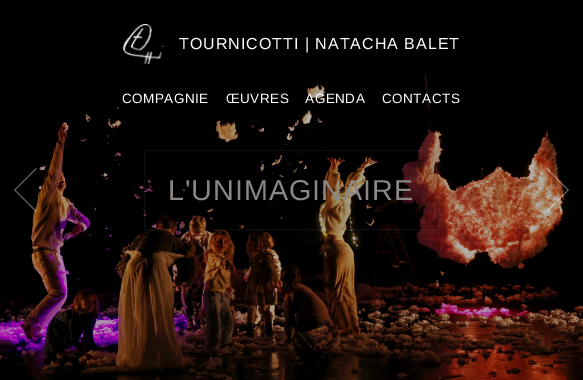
%!PS
<< /PageSize [583 380] /PageUsesTransparency true >> setpagedevice
/alpha { dup .setfillconstantalpha .setstrokeconstantalpha } def
/picture { 5 dict begin { /h /w /y /x /name } { exch def } forall
  gsave x y translate w h scale
  w h 8 [w 0 0 h 0 0] name (r) file false 3 colorimage grestore end } def
0 .pushpdf14devicefilter
0 380 translate 1 -1 scale
4 setmiterlimit
1 setgray
0 0 583 380 rectfill
(img2.rgb) 0 0 583 380 picture
(img1.rgb) 123 24 41 40 picture
/LiberationSans-Regular [16 0 0 -16 0 0] selectfont
179 49 moveto 1 0 (TOURNICOTTI | NATACHA BALET) ashow
/LiberationSans-Regular [13.5 0 0 -13.5 0 0] selectfont
122 103 moveto 0.5 0 (COMPAGNIE) ashow
226 103 moveto 0.5 0 (ŒUVRES) ashow
305 103 moveto 0.5 0 (AGENDA) ashow
382 103 moveto 0.5 0 (CONTACTS) ashow
0.4 alpha
newpath 36 212 moveto 14 190 lineto 15.5 190 lineto 36.5 211 lineto closepath fill
1 alpha
0.4 setgray
newpath 14 190 moveto 36 168 lineto 36.5 169 lineto 15.5 190 lineto closepath fill
0.07 alpha
0 setgray
144 150 296 80 rectfill
0.05 alpha
1 setgray
144.5 150.5 295 79 rectstroke
/LiberationSans-Regular [28.75 0 0 -28.75 0 0] selectfont
1 alpha
0.545 0.529 0.518 setrgbcolor
168 200 moveto 1 0 (L'UNIMAGINAIRE) ashow
0.4 alpha
1 setgray
newpath 547 168 moveto 569 190 lineto 567.5 190 lineto 546.5 169 lineto closepath 569 190 moveto 547 212 lineto 546.5 211 lineto 567.5 190 lineto closepath fill
.poppdf14devicefilter showpage
